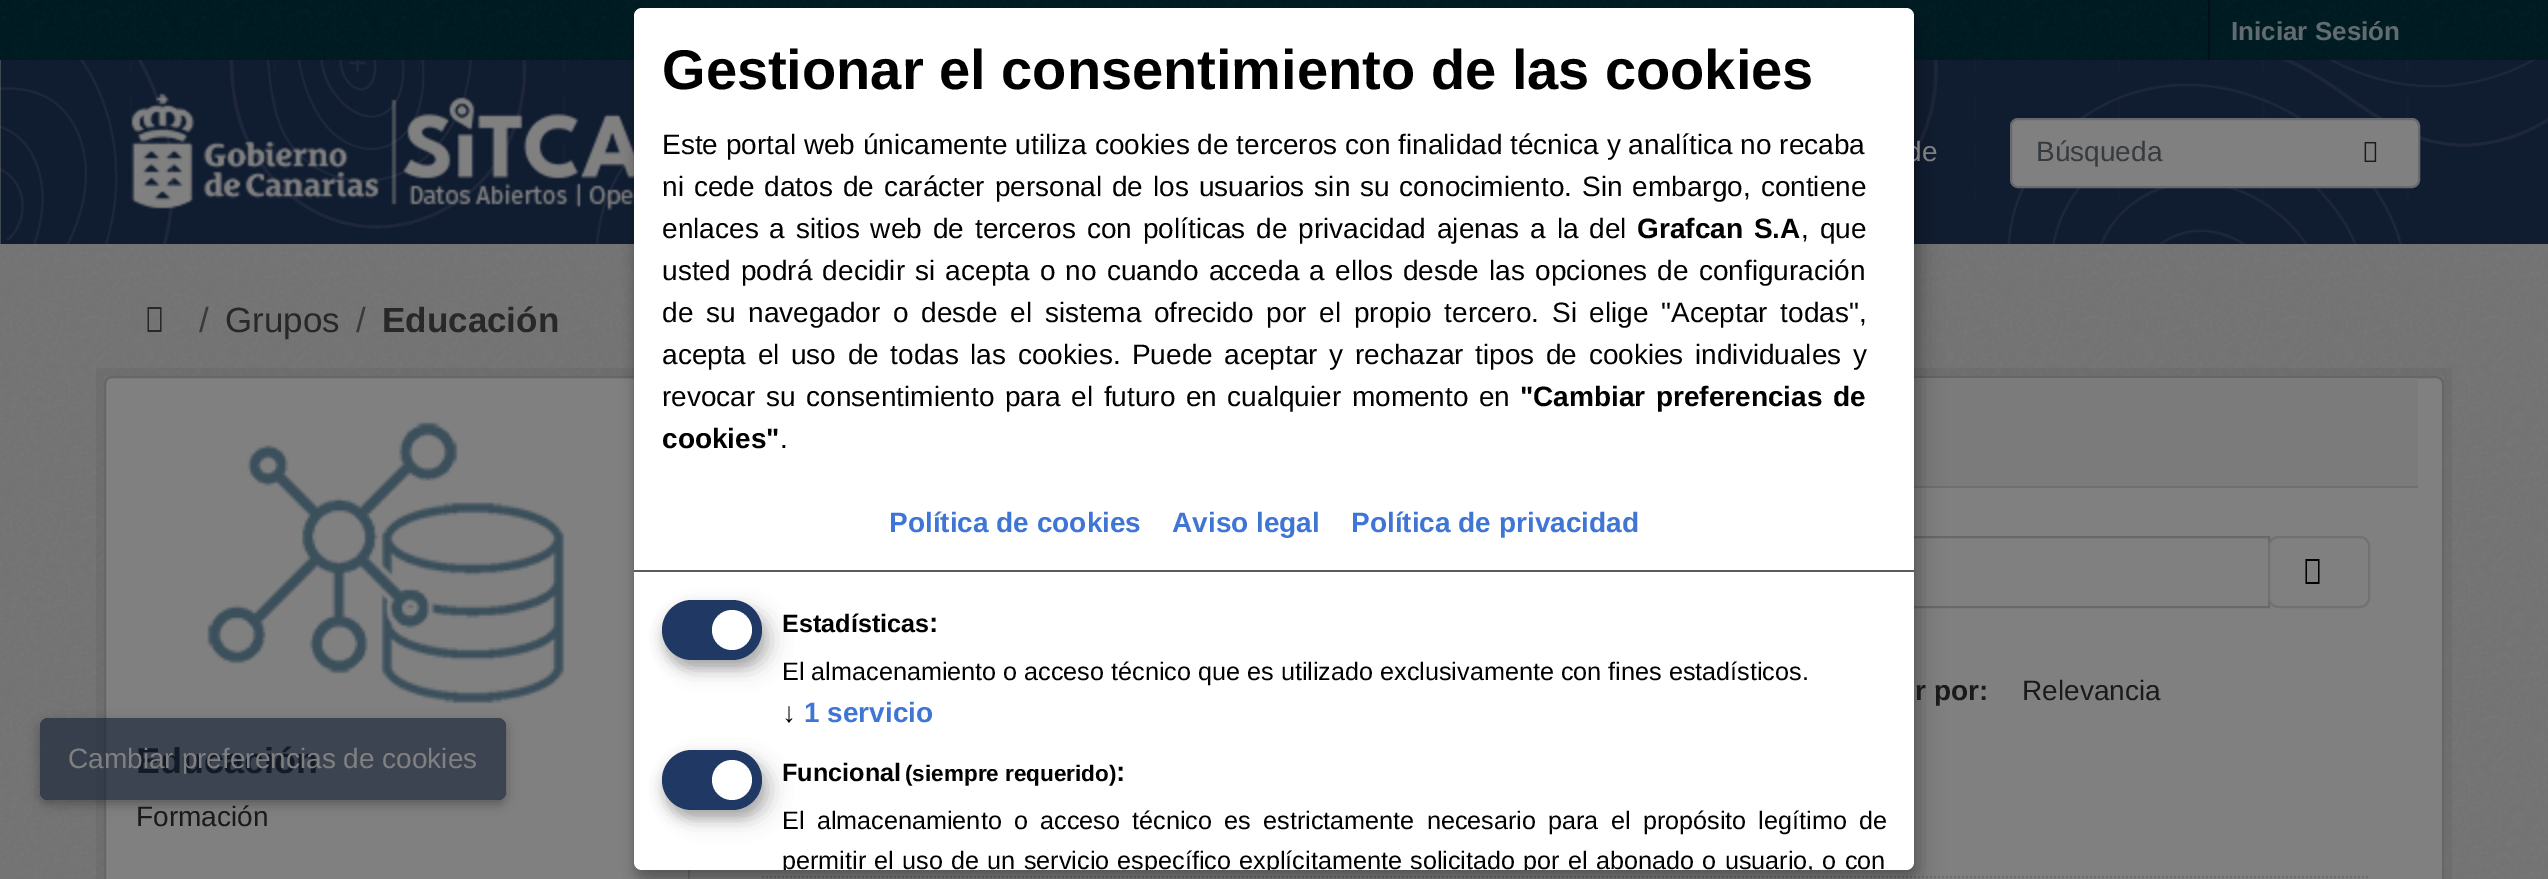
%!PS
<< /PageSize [2548 879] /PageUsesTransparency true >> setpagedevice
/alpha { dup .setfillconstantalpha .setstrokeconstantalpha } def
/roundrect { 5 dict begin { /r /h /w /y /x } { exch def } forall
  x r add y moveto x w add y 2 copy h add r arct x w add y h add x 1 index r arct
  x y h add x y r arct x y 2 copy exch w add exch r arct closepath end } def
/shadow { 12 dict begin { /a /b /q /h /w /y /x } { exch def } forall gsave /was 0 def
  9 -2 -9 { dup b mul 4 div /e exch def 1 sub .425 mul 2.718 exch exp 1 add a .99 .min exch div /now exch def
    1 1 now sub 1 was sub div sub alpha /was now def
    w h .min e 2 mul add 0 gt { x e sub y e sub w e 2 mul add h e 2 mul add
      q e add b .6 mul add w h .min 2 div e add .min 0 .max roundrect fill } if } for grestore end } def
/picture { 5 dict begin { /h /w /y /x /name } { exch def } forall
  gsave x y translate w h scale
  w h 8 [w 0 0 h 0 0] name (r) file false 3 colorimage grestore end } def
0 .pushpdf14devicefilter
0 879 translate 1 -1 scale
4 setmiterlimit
0 0.106 0.141 setrgbcolor
0 0 2548 879 rectfill
(img1.rgb) 0 0 2548 60 picture
0 0.071 0.09 setrgbcolor
2208 0 2 62 rectfill
/LiberationSans-Bold [26 0 0 -26 0 0] selectfont
0.376 0.424 0.435 setrgbcolor
2231 40 moveto (Iniciar Sesión) show
(img2.rgb) 0 60 2548 184 picture
(img3.rgb) 131 93 503 118 picture
0.467 setgray
0 244 2548 635 rectfill
(img5.rgb) 0 244 2548 635 picture
0.05 alpha
0 setgray
8 setlinewidth
100 372 2348 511 rectstroke
1 alpha
0.502 setgray
105 377 2338 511 7 roundrect gsave fill grestore
0.4 setgray
2 setlinewidth
stroke
0.482 setgray
newpath 714 378 moveto 2412 378 lineto 2415.5 378 2418 380.5 2418 384 curveto 2418 488 lineto 714 488 lineto closepath fill
0.435 setgray
1914 486 504 2 rectfill
[2 2] 0 setdash
newpath 762 877 moveto 2370 877 lineto stroke
0.404 0.416 0.427 setrgbcolor
[] 0 setdash
763 537 1506 70 rectstroke
0.435 setgray
688 870 2 9 rectfill
0 setgray
644 18 1280 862 8 10 0.19 shadow
634 16 1280 862 8 6 0.2 shadow
/LiberationSans-Regular [28 0 0 -28 0 0] selectfont
0.502 setgray
1906 161 moveto (de) show
1 setgray
634 8 1280 862 8 roundrect fill
0.361 setgray
634 570 1280 2 rectfill
/LiberationSans-Bold [56 0 0 -56 0 0] selectfont
0 setgray
662 89 moveto (Gestionar el consentimiento de las cookies) show
/LiberationSans-Regular [28 0 0 -28 0 0] selectfont
662 154 moveto (Este portal web únicamente utiliza cookies de terceros con finalidad técnica y analítica no recaba) show
662 196 moveto 2.1 0 32 (ni cede datos de carácter personal de los usuarios sin su conocimiento. Sin embargo, contiene) widthshow
662 238 moveto 3.1 0 32 (enlaces a sitios web de terceros con políticas de privacidad ajenas a la del) widthshow
/LiberationSans-Bold [28 0 0 -28 0 0] selectfont
1637 238 moveto 3.1 0 32 (Grafcan S.A) widthshow
/LiberationSans-Regular [28 0 0 -28 0 0] selectfont
1801 238 moveto 3.1 0 32 (, que) widthshow
662 280 moveto 2.4 0 32 (usted podrá decidir si acepta o no cuando acceda a ellos desde las opciones de configuración) widthshow
662 322 moveto 4.9 0 32 (de su navegador o desde el sistema ofrecido por el propio tercero. Si elige "Aceptar todas",) widthshow
662 364 moveto 3.75 0 32 (acepta el uso de todas las cookies. Puede aceptar y rechazar tipos de cookies individuales y) widthshow
662 406 moveto 2.75 0 32 (revocar su consentimiento para el futuro en cualquier momento en) widthshow
/LiberationSans-Bold [28 0 0 -28 0 0] selectfont
1520 406 moveto 2.75 0 32 ("Cambiar preferencias de) widthshow
662 448 moveto (cookies") show
/LiberationSans-Regular [28 0 0 -28 0 0] selectfont
780 448 moveto (.) show
/LiberationSans-Bold [28 0 0 -28 0 0] selectfont
0.247 0.459 0.831 setrgbcolor
889 532 moveto (Política de cookies) show
1172 532 moveto (Aviso legal) show
1351 532 moveto (Política de privacidad) show
0 setgray
672 610 100 60 30 10 0.19 shadow
662 608 100 60 30 6 0.2 shadow
0.122 0.22 0.392 setrgbcolor
662 600 100 60 30 roundrect fill
1 setgray
newpath 732 630 20 0 360 arc closepath fill
/LiberationSans-Bold [25.2 0 0 -25.2 0 0] selectfont
0 setgray
782 632 moveto (Estadísticas) show
/LiberationSans-Bold [28 0 0 -28 0 0] selectfont
929 632 moveto (:) show
/LiberationSans-Regular [25.2 0 0 -25.2 0 0] selectfont
782 680 moveto (El almacenamiento o acceso técnico que es utilizado exclusivamente con fines estadísticos.) show
/LiberationSans-Bold [28 0 0 -28 0 0] selectfont
782 722 moveto (↓) show
0.247 0.459 0.831 setrgbcolor
804 722 moveto (1 servicio) show
0 setgray
672 760 100 60 30 10 0.19 shadow
662 758 100 60 30 6 0.2 shadow
0.122 0.22 0.392 setrgbcolor
662 750 100 60 30 roundrect fill
1 setgray
newpath 732 780 20 0 360 arc closepath fill
/LiberationSans-Bold [25.2 0 0 -25.2 0 0] selectfont
0 setgray
782 781 moveto (Funcional) show
/LiberationSans-Bold [22.5 0 0 -22.5 0 0] selectfont
905 781 moveto (\(siempre requerido\)) show
/LiberationSans-Bold [28 0 0 -28 0 0] selectfont
1116 781 moveto (:) show
/LiberationSans-Regular [25.2 0 0 -25.2 0 0] selectfont
782 829 moveto 5.25 0 32 (El almacenamiento o acceso técnico es estrictamente necesario para el propósito legítimo de) widthshow
gsave
634 8 1280 862 8 roundrect clip newpath
782 869 moveto 1.3 0 32 (permitir el uso de un servicio específico explícitamente solicitado por el abonado o usuario, o con) widthshow
grestore
0.502 setgray
2011 119 408 68 7 roundrect gsave fill grestore
0.404 0.416 0.427 setrgbcolor
stroke
/LiberationSans-Regular [28 0 0 -28 0 0] selectfont
0.212 0.231 0.247 setrgbcolor
2036 161 moveto (Búsqueda) show
(img4.rgb) 2364 142 13 20 picture
0.157 setgray
newpath 147.5 332 moveto 147.5 307 lineto 161.5 307 lineto 161.5 332 lineto closepath 149 330 moveto 160 330 lineto 160 309 lineto 149 309 lineto closepath fill
/LiberationSans-Regular [35 0 0 -35 0 0] selectfont
0.212 0.231 0.247 setrgbcolor
199 332 moveto (/) show
0.157 setgray
225 332 moveto (Grupos) show
0.212 0.231 0.247 setrgbcolor
356 332 moveto (/) show
/LiberationSans-Bold [35 0 0 -35 0 0] selectfont
0.157 setgray
382 332 moveto (Educación) show
0.502 setgray
2269 537 100 70 9 roundrect gsave fill grestore
0.435 0.443 0.451 setrgbcolor
stroke
0 setgray
newpath 2305.5 584 moveto 2305.5 559 lineto 2319.5 559 lineto 2319.5 584 lineto closepath 2307 582 moveto 2318 582 lineto 2318 561 lineto 2307 561 lineto closepath fill
/LiberationSans-Bold [28 0 0 -28 0 0] selectfont
0.102 setgray
1915 700 moveto (r por:) show
/LiberationSans-Regular [28 0 0 -28 0 0] selectfont
2022 700 moveto (Relevancia) show
(img6.rgb) 207 422 358 282 picture
/LiberationSans-Bold [36 0 0 -36 0 0] selectfont
136 773 moveto (Educación) show
/LiberationSans-Regular [28 0 0 -28 0 0] selectfont
136 826 moveto (Formación) show
gsave
newpath 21 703 moveto 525 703 lineto 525 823 lineto 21 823 lineto closepath 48 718 moveto 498 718 lineto 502.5 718 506 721.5 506 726 curveto 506 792 lineto 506 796.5 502.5 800 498 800 curveto 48 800 lineto 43.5 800 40 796.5 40 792 curveto 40 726 lineto 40 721.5 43.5 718 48 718 curveto closepath eoclip newpath
0 setgray
40 722 466 82 8 6 0.3 shadow
grestore
0.6 alpha
0.063 0.11 0.196 setrgbcolor
40 718 466 82 8 roundrect fill
1 alpha
0.502 setgray
68 768 moveto (Cambiar preferencias de cookies) show
.poppdf14devicefilter showpage
